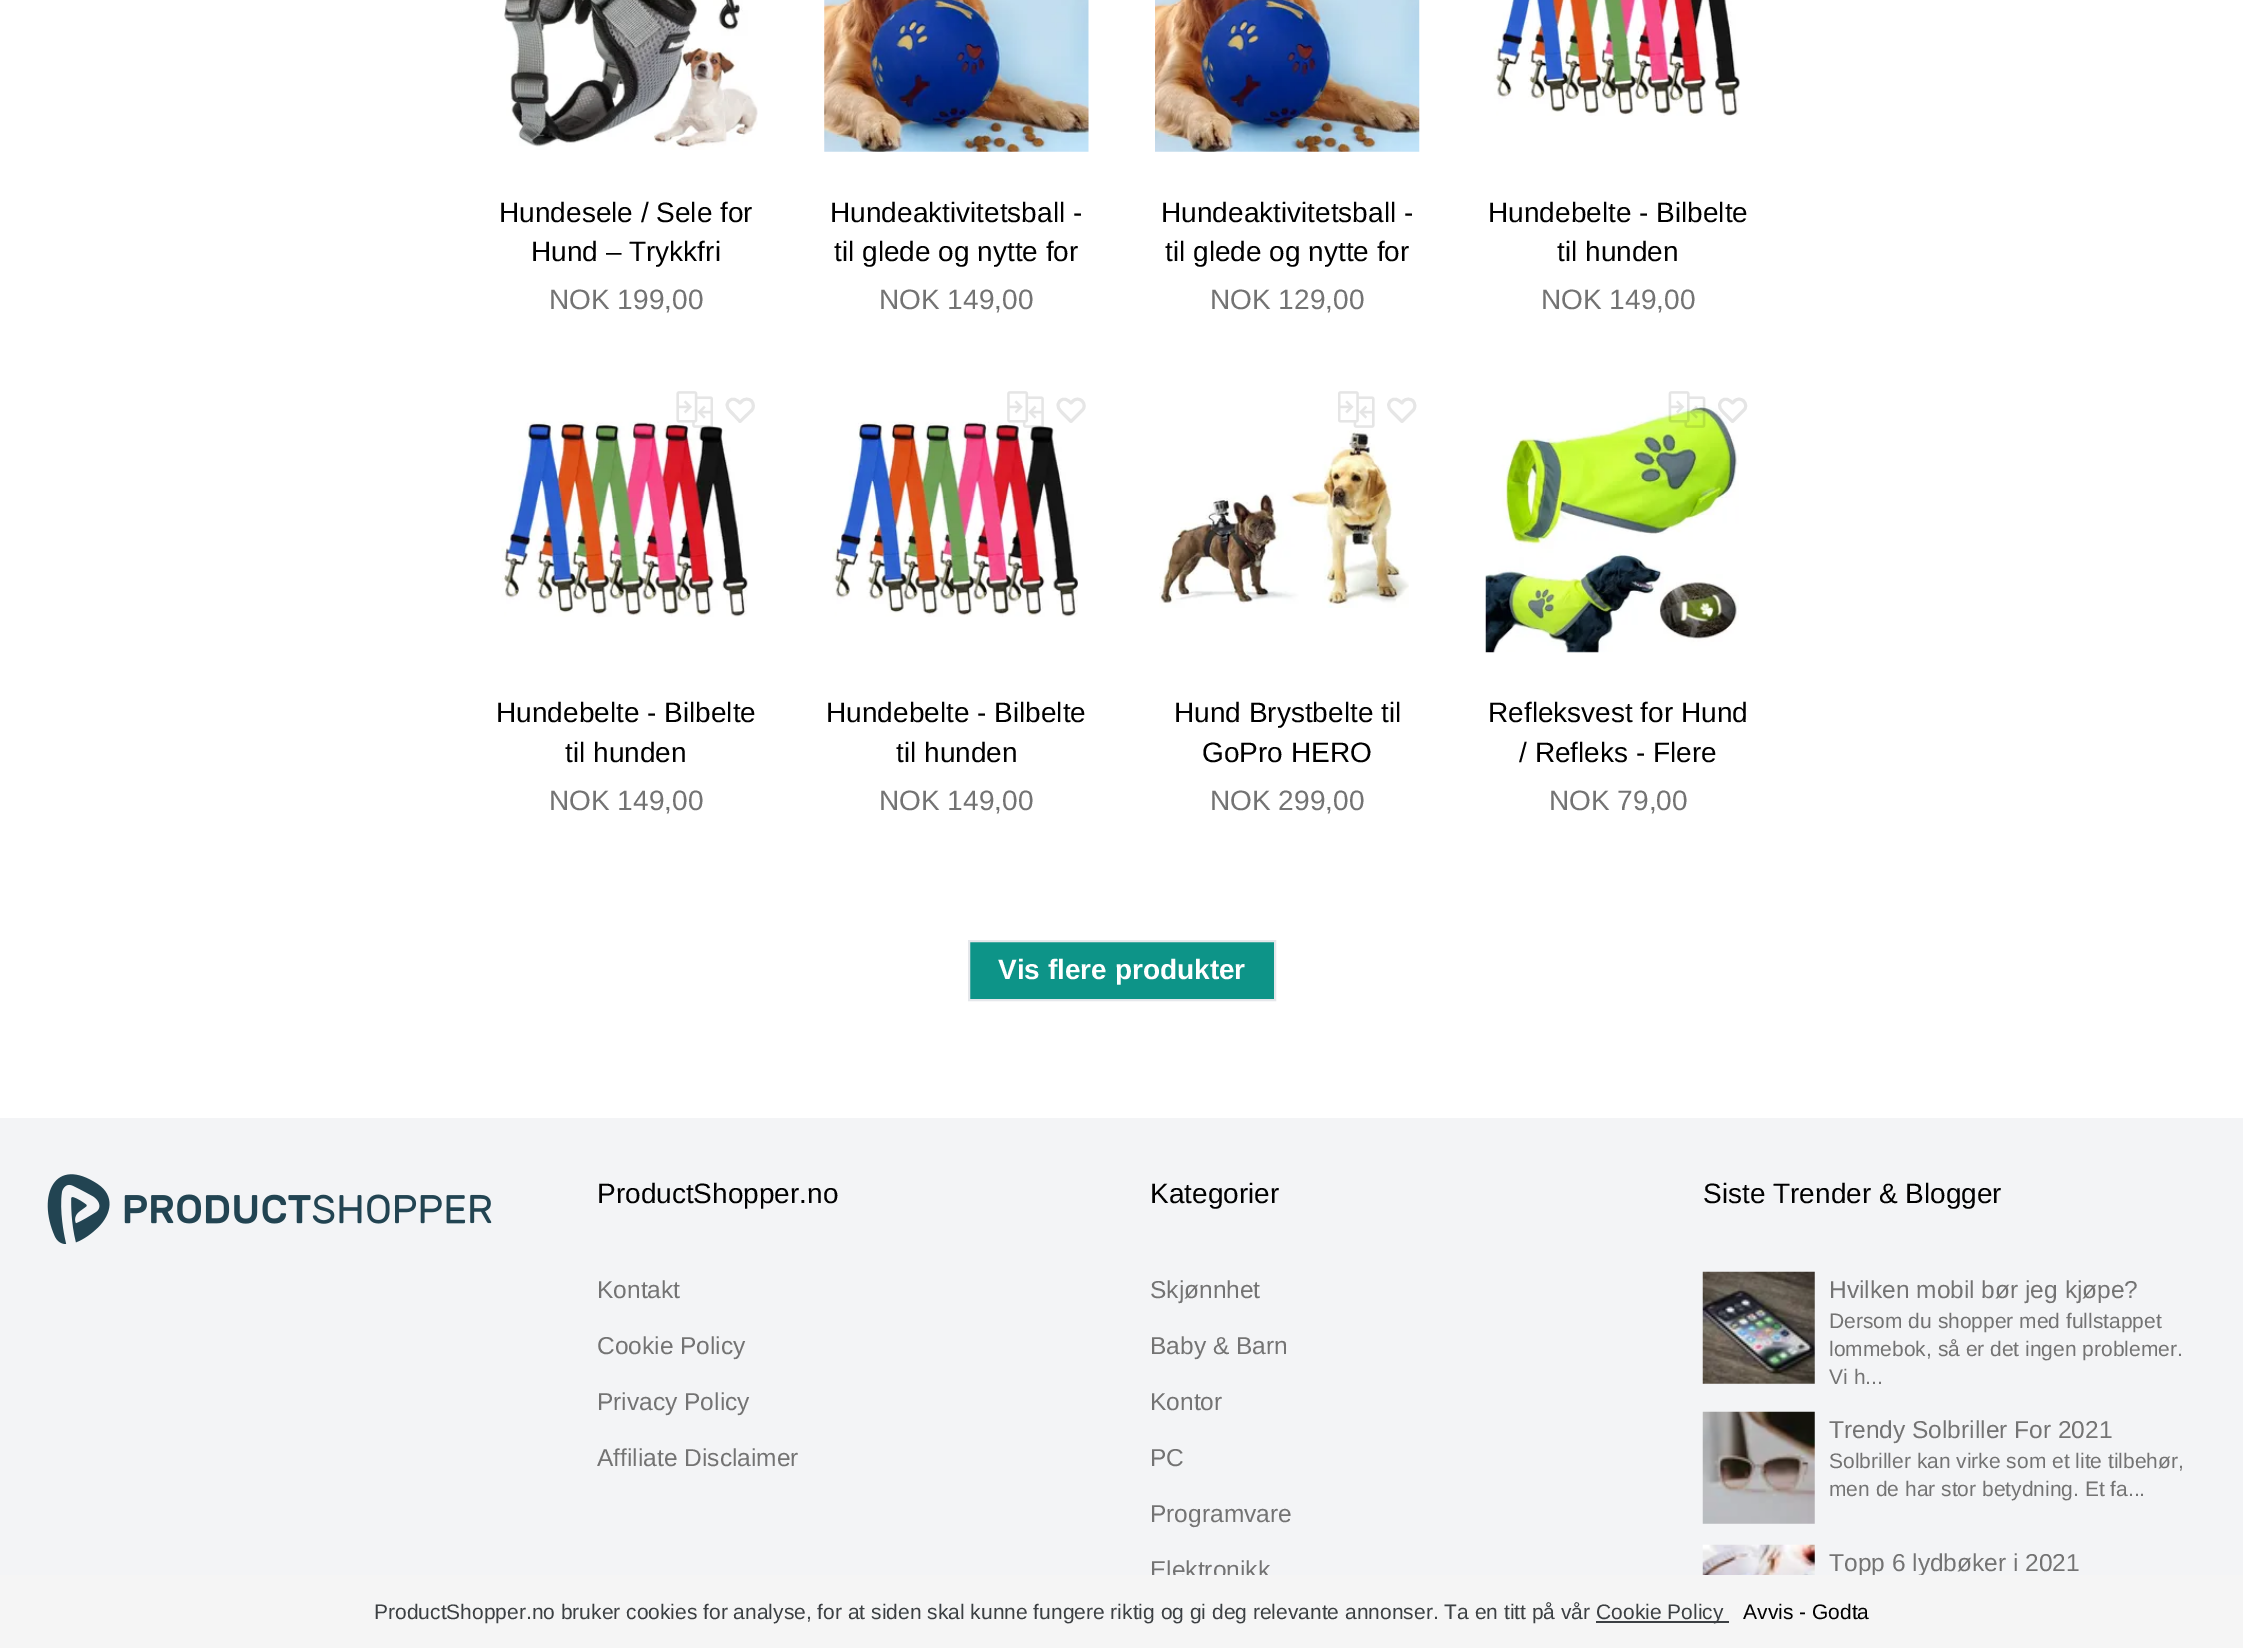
%!PS
<< /PageSize [2243 1648] >> setpagedevice
/picture { 5 dict begin { /h /w /y /x /name } { exch def } forall
  gsave x y translate w h scale
  w h 8 [w 0 0 h 0 0] name (r) file false 3 colorimage grestore end } def
0 1648 translate 1 -1 scale
4 setmiterlimit
1 setgray
0 0 2243 1648 rectfill
(img1.rgb) 504 0 254 150 picture
/LiberationSans-Regular [28 0 0 -28 0 0] selectfont
0 setgray
499 222 moveto (Hundesele / Sele for) show
531 261 moveto (Hund – Trykkfri) show
0.451 setgray
549 309 moveto (NOK 199,00) show
(img2.rgb) 824 0 265 152 picture
0 setgray
830 222 moveto (Hundeaktivitetsball -) show
834 261 moveto (til glede og nytte for) show
0.451 setgray
879 309 moveto (NOK 149,00) show
(img3.rgb) 1155 0 265 152 picture
0 setgray
1161 222 moveto (Hundeaktivitetsball -) show
1165 261 moveto (til glede og nytte for) show
0.451 setgray
1210 309 moveto (NOK 129,00) show
(img4.rgb) 1493 0 247 116 picture
0 setgray
1488 222 moveto (Hundebelte - Bilbelte) show
1557 261 moveto (til hunden) show
0.451 setgray
1541 309 moveto (NOK 149,00) show
(img6.rgb) 501 420 247 197 picture
(img5.rgb) 676 391 37 37 picture
0.902 setgray
2.9 setlinewidth
1 setlinecap
1 setlinejoin
newpath 729 401 moveto 724 406 729.5 410.5 733 414 curveto 740 421.5 lineto 751.5 410.5 lineto 754 408 754 404 751.5 401 curveto 749 398.5 744.5 398.5 742 401 curveto 740 403 lineto 737 400 733 397 729 401 curveto closepath stroke
0 setgray
496 722 moveto (Hundebelte - Bilbelte) show
565 762 moveto (til hunden) show
0.451 setgray
549 810 moveto (NOK 149,00) show
(img8.rgb) 832 420 246 197 picture
(img7.rgb) 1007 391 37 37 picture
0.902 setgray
newpath 1060 401 moveto 1055 406 1060 410.5 1063.5 414 curveto 1071 421.5 lineto 1082 410.5 lineto 1085 408 1085 404 1082 401 curveto 1079.5 398.5 1075.5 398.5 1073 401 curveto 1071 403 lineto 1068 400 1064 397 1060 401 curveto closepath stroke
0 setgray
826 722 moveto (Hundebelte - Bilbelte) show
896 762 moveto (til hunden) show
0.451 setgray
879 810 moveto (NOK 149,00) show
(img9.rgb) 1338 391 37 37 picture
0.902 setgray
newpath 1390.5 401 moveto 1385.5 406 1391 410.5 1394.5 414 curveto 1402 421.5 lineto 1413 410.5 lineto 1415.5 408 1415.5 404 1413 401 curveto 1410.5 398.5 1406 398.5 1403.5 401 curveto 1402 403 lineto 1398.5 400 1394.5 397 1390.5 401 curveto closepath stroke
(img10.rgb) 1159 430 250 178 picture
0 setgray
1174 722 moveto (Hund Brystbelte til) show
1202 762 moveto (GoPro HERO) show
0.451 setgray
1210 810 moveto (NOK 299,00) show
(img12.rgb) 1485 405 254 248 picture
(img11.rgb) 1668 391 38 37 picture
0.898 setgray
newpath 1721.5 401 moveto 1716.5 406 1721.5 410.5 1725 414 curveto 1732.5 421.5 lineto 1743.5 410.5 lineto 1746.5 408 1746.5 404 1743.5 401 curveto 1741 398.5 1737 398.5 1734.5 401 curveto 1732.5 403 lineto 1729.5 400 1725.5 397 1721.5 401 curveto closepath stroke
0 setgray
1488 722 moveto (Refleksvest for Hund) show
1519 762 moveto (/ Refleks - Flere) show
0.451 setgray
1549 810 moveto (NOK 79,00) show
0.051 0.58 0.533 setrgbcolor
newpath 969 941 moveto 1275 941 lineto 1275 1000 lineto 969 1000 lineto closepath gsave fill grestore
0.898 0.906 0.922 setrgbcolor
2 setlinewidth
0 setlinecap
0 setlinejoin
stroke
/LiberationSans-Bold [28 0 0 -28 0 0] selectfont
1 setgray
998 979 moveto (Vis flere produkter) show
0.953 0.957 0.965 setrgbcolor
0 1118 2243 457 rectfill
(img13.rgb) 47 1174 445 70 picture
/LiberationSans-Regular [28 0 0 -28 0 0] selectfont
0 setgray
597 1203 moveto (ProductShopper.no) show
/LiberationSans-Regular [24.5 0 0 -24.5 0 0] selectfont
0.451 setgray
597 1298 moveto (Kontakt) show
597 1354 moveto (Cookie Policy) show
597 1410 moveto (Privacy Policy) show
597 1466 moveto (Affiliate Disclaimer) show
/LiberationSans-Regular [28 0 0 -28 0 0] selectfont
0 setgray
1150 1203 moveto (Kategorier) show
/LiberationSans-Regular [24.5 0 0 -24.5 0 0] selectfont
0.451 setgray
1150 1298 moveto (Skjønnhet) show
1150 1354 moveto (Baby & Barn) show
1150 1410 moveto (Kontor) show
1150 1466 moveto (PC) show
1150 1522 moveto (Programvare) show
1150 1578 moveto (Elektronikk) show
/LiberationSans-Regular [28 0 0 -28 0 0] selectfont
0 setgray
1703 1203 moveto (Siste Trender & Blogger) show
(img14.rgb) 1702 1271 113 113 picture
/LiberationSans-Regular [24.5 0 0 -24.5 0 0] selectfont
0.451 setgray
1829 1298 moveto (Hvilken mobil bør jeg kjøpe?) show
/LiberationSans-Regular [21 0 0 -21 0 0] selectfont
1829 1328 moveto (Dersom du shopper med fullstappet) show
1829 1356 moveto (lommebok, så er det ingen problemer.) show
1829 1384 moveto (Vi h...) show
(img15.rgb) 1702 1411 113 113 picture
/LiberationSans-Regular [24.5 0 0 -24.5 0 0] selectfont
1829 1438 moveto (Trendy Solbriller For 2021) show
/LiberationSans-Regular [21 0 0 -21 0 0] selectfont
1829 1468 moveto (Solbriller kan virke som et lite tilbehør,) show
1829 1496 moveto (men de har stor betydning. Et fa...) show
(img16.rgb) 1702 1544 113 31 picture
/LiberationSans-Regular [24.5 0 0 -24.5 0 0] selectfont
1829 1571 moveto (Topp 6 lydbøker i 2021) show
0.961 setgray
0 1575 2243 73 rectfill
/LiberationSans-Regular [21 0 0 -21 0 0] selectfont
0.235 0.251 0.263 setrgbcolor
374 1619 moveto (ProductShopper.no bruker cookies for analyse, for at siden skal kunne fungere riktig og gi deg relevante annonser. Ta en titt på vår) show
1596 1621 133 2 rectfill
1596 1619 moveto (Cookie Policy) show
0 setgray
1743 1619 moveto (Avvis - Godta) show
showpage
